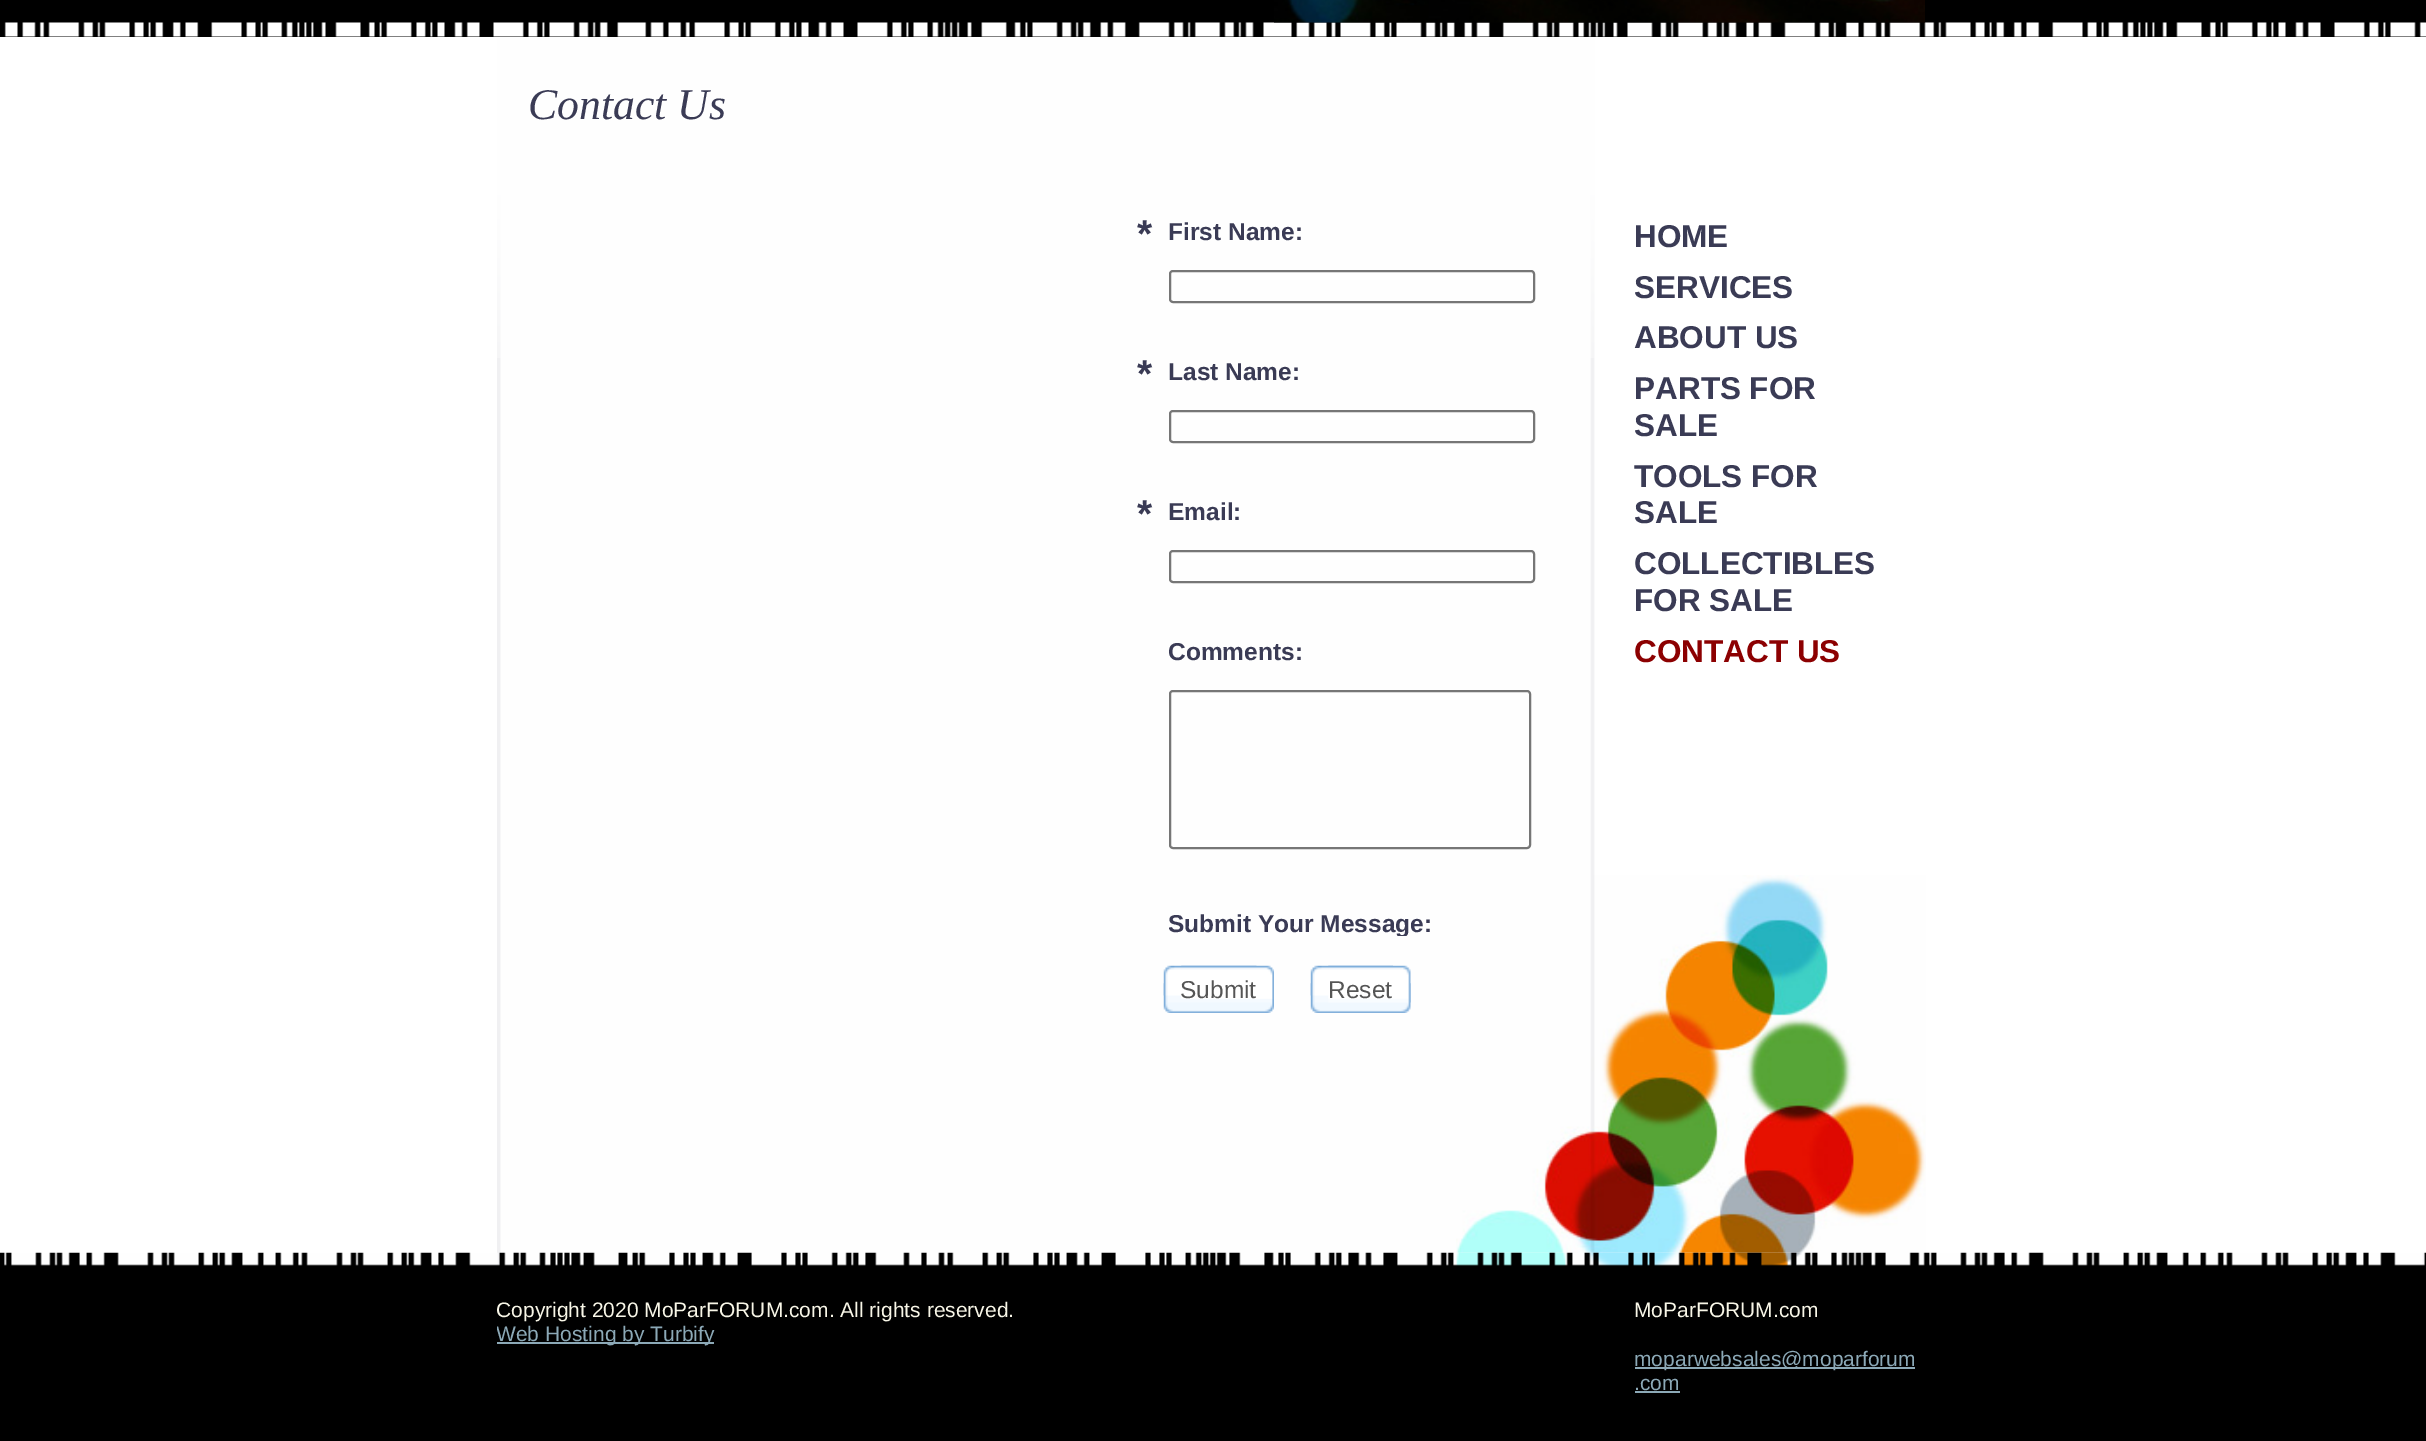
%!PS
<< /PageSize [2426 1441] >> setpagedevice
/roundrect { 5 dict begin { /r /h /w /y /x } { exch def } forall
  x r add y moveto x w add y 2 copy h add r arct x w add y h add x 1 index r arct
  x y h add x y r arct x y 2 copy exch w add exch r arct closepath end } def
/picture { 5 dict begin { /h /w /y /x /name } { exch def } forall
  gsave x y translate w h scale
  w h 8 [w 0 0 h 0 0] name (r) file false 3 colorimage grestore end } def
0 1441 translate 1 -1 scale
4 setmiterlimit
1 setgray
0 0 2426 1441 rectfill
(img1.rgb) 497 358 1098 895 picture
0 setgray
0 0 2426 37 rectfill
(img2.rgb) 4 22 2422 15 picture
(img3.rgb) 1274 0 651 23 picture
(img4.rgb) 497 37 1098 321 picture
/LiberationSerif-Italic [43.75 0 0 -43.75 0 0] selectfont
0.227 0.231 0.333 setrgbcolor
528 119 moveto (Contact Us) show
/LiberationSans-Bold [39 0 0 -39 0 0] selectfont
1137 247 moveto (*) show
/LiberationSans-Bold [24.5 0 0 -24.5 0 0] selectfont
1168 240 moveto (First Name:) show
0.463 setgray
2 setlinewidth
1170 271 364 31 3 roundrect stroke
/LiberationSans-Bold [39 0 0 -39 0 0] selectfont
0.227 0.231 0.333 setrgbcolor
1137 387 moveto (*) show
/LiberationSans-Bold [24.5 0 0 -24.5 0 0] selectfont
1168 380 moveto (Last Name:) show
0.463 setgray
1170 411 364 31 3 roundrect stroke
/LiberationSans-Bold [39 0 0 -39 0 0] selectfont
0.227 0.231 0.333 setrgbcolor
1137 527 moveto (*) show
/LiberationSans-Bold [24.5 0 0 -24.5 0 0] selectfont
1168 520 moveto (Email:) show
0.463 setgray
1170 551 364 31 3 roundrect stroke
0.227 0.231 0.333 setrgbcolor
1168 660 moveto (Comments:) show
0.463 setgray
1170 691 360 157 3 roundrect stroke
gsave
1169 908 371 28 rectclip
0.227 0.231 0.333 setrgbcolor
1168 932 moveto (Submit Your Message:) show
grestore
(img5.rgb) 1182 999 92 14 picture
(img6.rgb) 1163 983 19 30 picture
(img7.rgb) 1163 965 94 31 picture
(img8.rgb) 1181 965 93 34 picture
/LiberationSans-Regular [24.5 0 0 -24.5 0 0] selectfont
0.333 setgray
1180 998 moveto (Submit) show
(img9.rgb) 1329 983 82 30 picture
(img10.rgb) 1310 983 19 30 picture
(img11.rgb) 1310 965 83 31 picture
(img12.rgb) 1328 965 83 38 picture
1328 998 moveto (Reset) show
/LiberationSans-Bold [31.5 0 0 -31.5 0 0] selectfont
0.227 0.231 0.333 setrgbcolor
1634 247 moveto (HOME) show
1634 298 moveto (SERVICES) show
1634 348 moveto (ABOUT US) show
1634 399 moveto (PARTS FOR) show
1634 436 moveto (SALE) show
1634 487 moveto (TOOLS FOR) show
1634 523 moveto (SALE) show
1634 574 moveto (COLLECTIBLES) show
1634 611 moveto (FOR SALE) show
0.549 0 0.004 setrgbcolor
1634 662 moveto (CONTACT US) show
(img13.rgb) 1456 875 470 378 picture
0 setgray
0 1266 2426 175 rectfill
(img14.rgb) 0 1252 2426 14 picture
/LiberationSans-Regular [21 0 0 -21 0 0] selectfont
0.973 0.965 0.906 setrgbcolor
496 1317 moveto (Copyright 2020 MoParFORUM.com. All rights reserved.) show
0.549 0.663 0.718 setrgbcolor
497 1342 217 2 rectfill
gsave
497 1297 1024 49 rectclip
496 1341 moveto (Web Hosting by Turbify) show
grestore
0.973 0.965 0.906 setrgbcolor
1634 1317 moveto (MoParFORUM.com) show
0.549 0.663 0.718 setrgbcolor
1635 1367 280 2 rectfill
1634 1366 moveto (moparwebsales@moparforum) show
1634 1390 moveto (.com) show
1635 1391 45 2 rectfill
showpage
